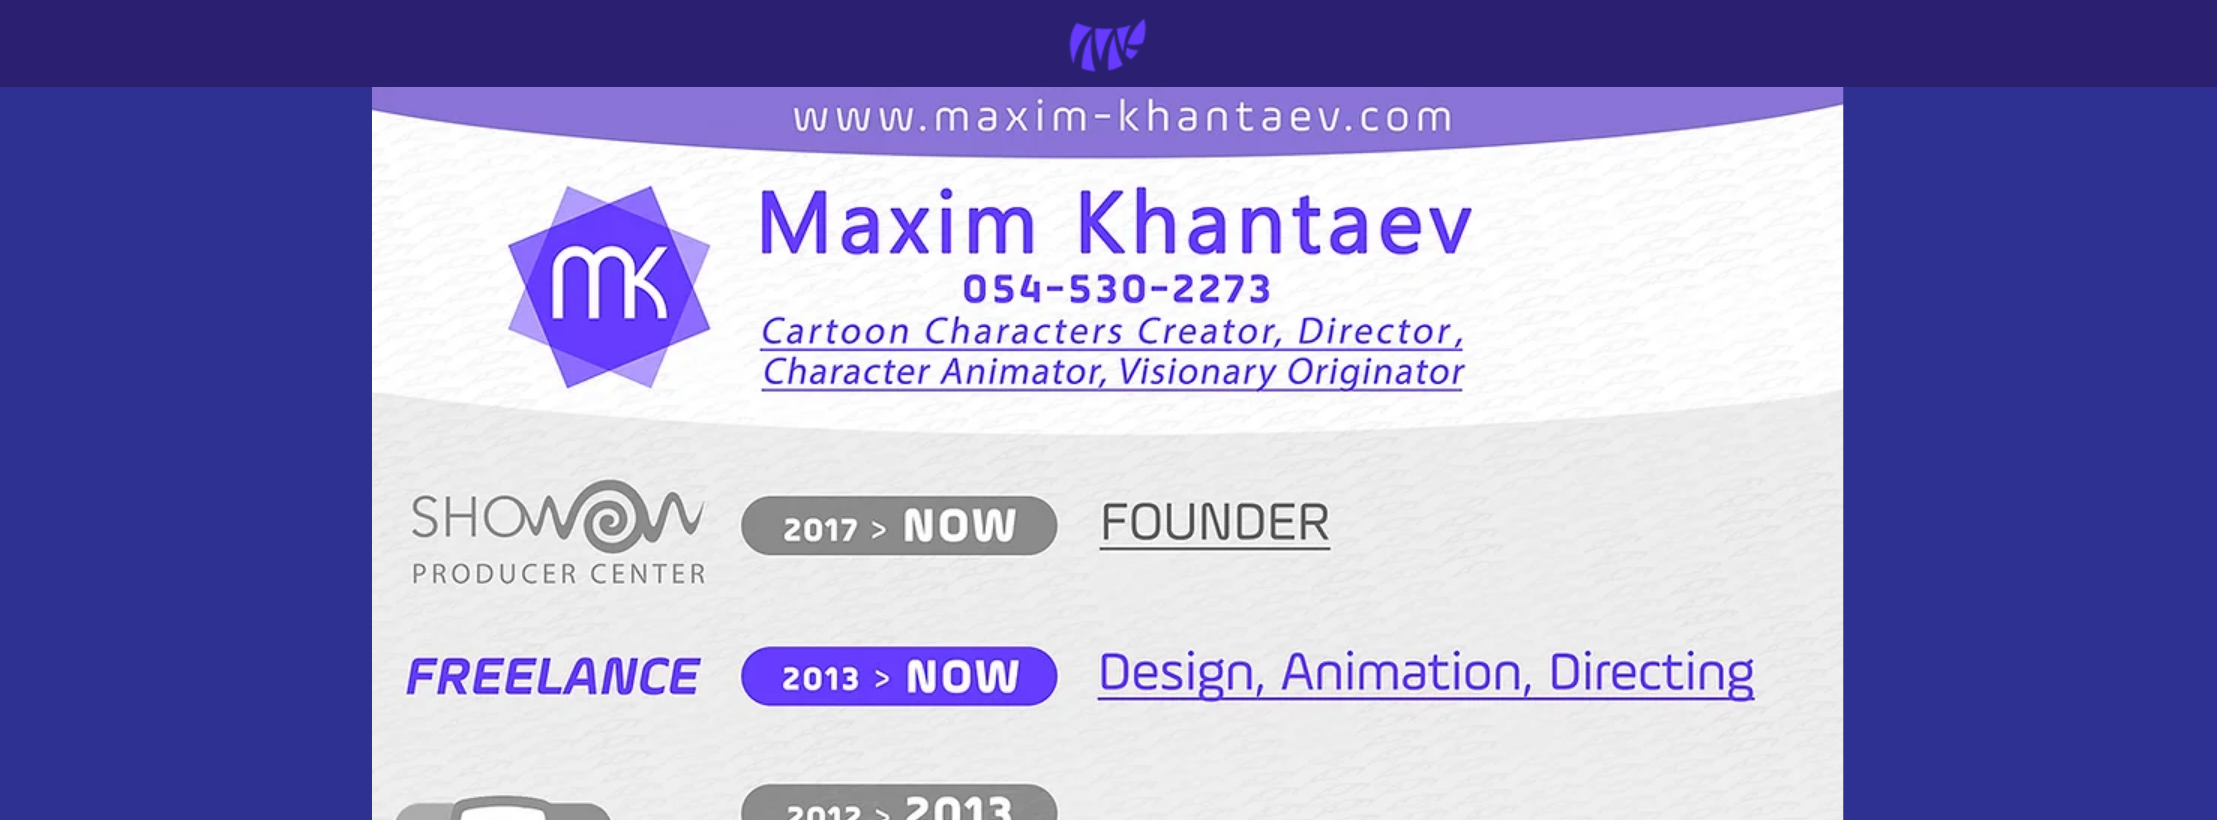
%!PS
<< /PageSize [2217 820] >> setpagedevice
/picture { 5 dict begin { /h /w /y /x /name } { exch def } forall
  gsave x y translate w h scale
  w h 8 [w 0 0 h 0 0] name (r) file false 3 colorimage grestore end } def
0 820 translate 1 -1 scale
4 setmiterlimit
0.18 0.192 0.573 setrgbcolor
0 0 2217 820 rectfill
0.165 0.122 0.439 setrgbcolor
0 0 2217 87 rectfill
(img1.rgb) 1069 18 78 55 picture
(img2.rgb) 372 87 1472 733 picture
showpage
